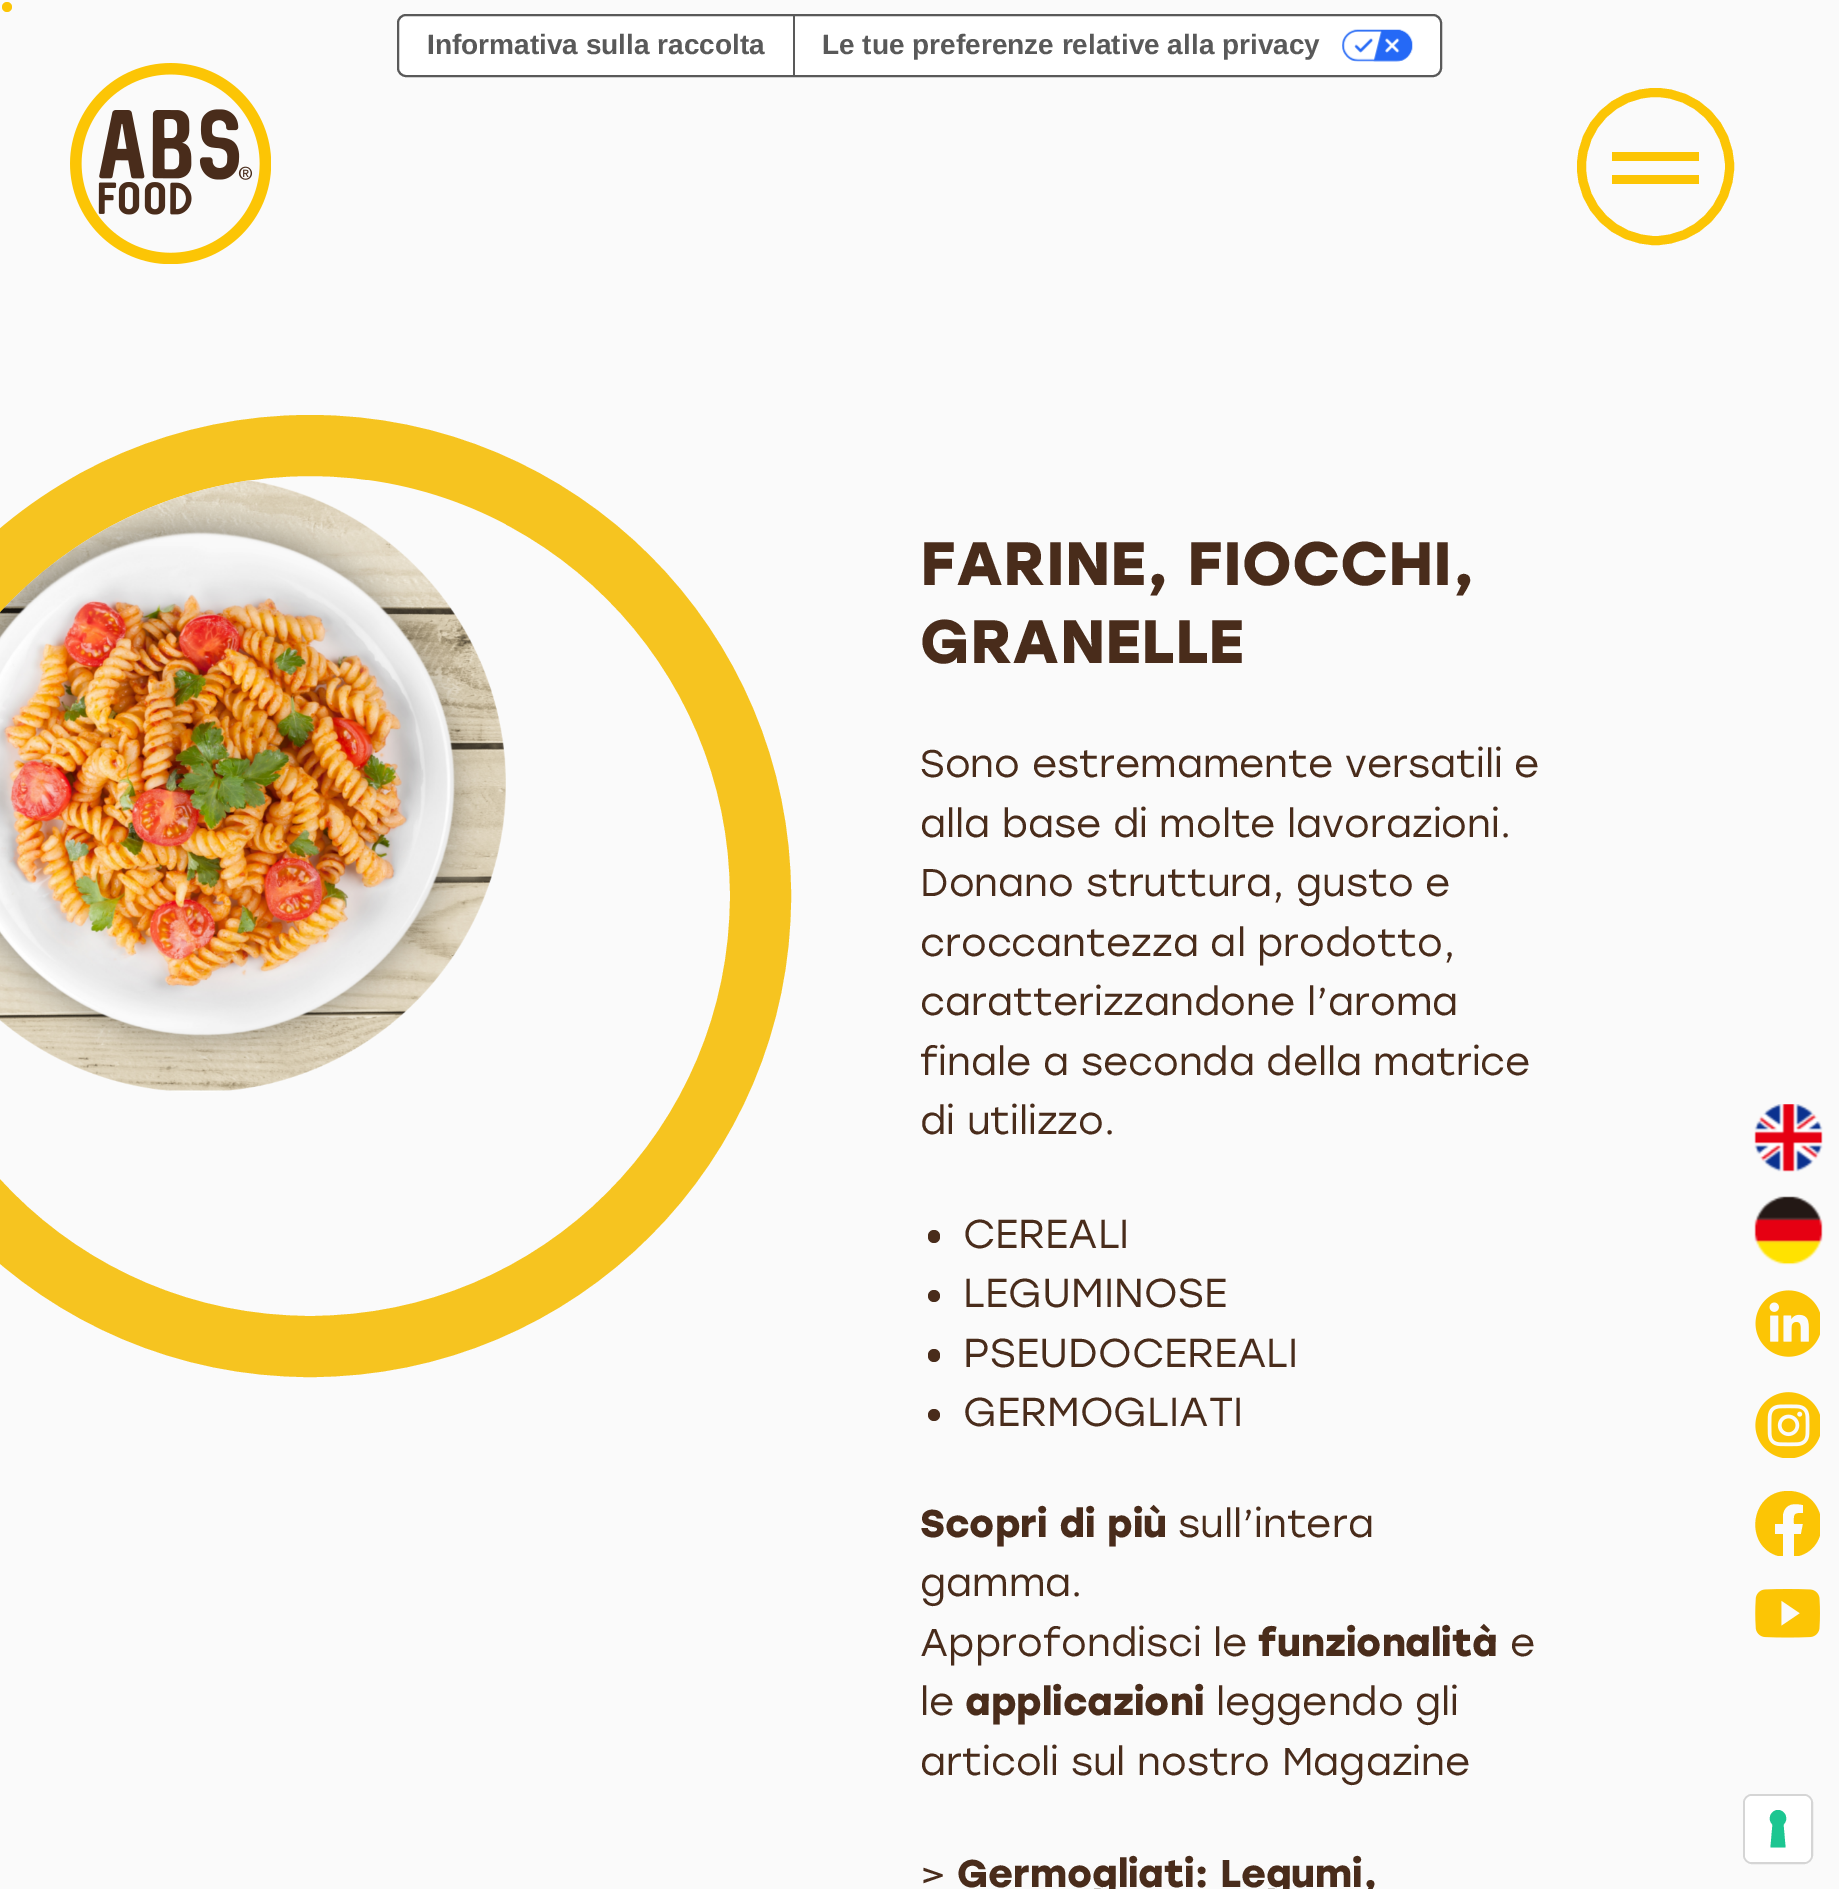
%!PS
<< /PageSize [1839 1889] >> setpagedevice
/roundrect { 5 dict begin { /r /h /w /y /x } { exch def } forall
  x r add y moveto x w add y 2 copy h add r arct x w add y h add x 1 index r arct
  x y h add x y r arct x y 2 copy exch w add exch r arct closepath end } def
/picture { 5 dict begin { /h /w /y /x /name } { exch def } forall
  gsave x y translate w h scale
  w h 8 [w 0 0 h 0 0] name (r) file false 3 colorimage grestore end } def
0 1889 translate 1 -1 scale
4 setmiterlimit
0.98 setgray
0 0 1839 1889 rectfill
0.988 0.773 0.02 setrgbcolor
newpath 7 7 5 0 360 arc closepath fill
1 setgray
398 15 1043 61 8 roundrect gsave fill grestore
0.349 setgray
2 setlinewidth
stroke
/LiberationSans-Bold [28 0 0 -28 0 0] selectfont
427 54 moveto (Informativa sulla raccolta) show
793 16 2 59 rectfill
822 54 moveto (Le tue preferenze relative alla privacy) show
(img1.rgb) 1342 29 71 33 picture
(img2.rgb) 70 63 201 201 picture
0.988 0.773 0.02 setrgbcolor
9 setlinewidth
newpath 1655.5 166.5 74 0 360 arc closepath stroke
1612 152 87 9 rectfill
1612 175 87 9 rectfill
0.965 0.769 0.125 setrgbcolor
61 setlinewidth
newpath 310 896 450.5 0 360 arc closepath stroke
(img3.rgb) 0 480 506 612 picture
/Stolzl-Bold [61.25 0 0 -61.25 0 0] selectfont
0.286 0.173 0.106 setrgbcolor
920 585 moveto (FARINE, FIOCCHI,) show
920 663 moveto (GRANELLE) show
/Stolzl-Regular [38.5 0 0 -38.5 0 0] selectfont
920 777 moveto (Sono estremamente versatili e) show
920 837 moveto (alla base di molte lavorazioni.) show
920 896 moveto (Donano struttura, gusto e) show
920 956 moveto (croccantezza al prodotto,) show
920 1015 moveto (caratterizzandone l’aroma) show
920 1075 moveto (finale a seconda della matrice) show
920 1134 moveto (di utilizzo.) show
928 1230 12 13 6 roundrect fill
/Stolzl-Regular [40.25 0 0 -40.25 0 0] selectfont
963 1248 moveto (CEREALI) show
newpath 934 1296 6 0 360 arc closepath fill
963 1307 moveto (LEGUMINOSE) show
928 1349 12 13 6 roundrect fill
963 1367 moveto (PSEUDOCEREALI) show
newpath 934 1415 6 0 360 arc closepath fill
963 1426 moveto (GERMOGLIATI) show
/Stolzl-Bold [38.5 0 0 -38.5 0 0] selectfont
920 1537 moveto (Scopri di più) show
/Stolzl-Regular [38.5 0 0 -38.5 0 0] selectfont
1178 1537 moveto (sull’intera) show
920 1596 moveto (gamma.) show
920 1656 moveto (Approfondisci le) show
/Stolzl-Bold [38.5 0 0 -38.5 0 0] selectfont
1258 1656 moveto (funzionalità) show
/Stolzl-Regular [38.5 0 0 -38.5 0 0] selectfont
1510 1656 moveto (e) show
920 1715 moveto (le) show
/Stolzl-Bold [38.5 0 0 -38.5 0 0] selectfont
965 1715 moveto (applicazioni) show
/Stolzl-Regular [38.5 0 0 -38.5 0 0] selectfont
1216 1715 moveto (leggendo gli) show
920 1775 moveto (articoli sul nostro Magazine) show
920 1887 moveto (>) show
/Stolzl-Bold [38.5 0 0 -38.5 0 0] selectfont
957 1887 moveto (Germogliati: Legumi,) show
(img4.rgb) 1754 1104 69 68 picture
(img5.rgb) 1754 1196 69 69 picture
(img6.rgb) 1755 1290 65 67 picture
(img7.rgb) 1755 1392 65 66 picture
gsave
1755 1491 65 65 rectclip
0.988 0.773 0.02 setrgbcolor
newpath 1788 1491 moveto 1748 1491 1743 1551 1783 1557 curveto 1783 1534 lineto 1775 1534 lineto 1775 1524 lineto 1783 1524 lineto 1783 1514 lineto 1785 1503 1795 1503 1803 1505 curveto 1803 1513 lineto 1793 1513 1794 1514 1794 1524 curveto 1803 1524 lineto 1801 1534 lineto 1794 1534 lineto 1794 1557 lineto 1834 1551 1829 1491 1788 1491 curveto fill
grestore
(img8.rgb) 1755 1589 65 49 picture
0.835 setgray
2 setlinewidth
1744 1795 68 68 8 roundrect stroke
1 setgray
1745 1796 66 66 7 roundrect fill
0.11 0.776 0.569 setrgbcolor
newpath 1778 1810 moveto 1785.5 1810 1789 1819.5 1783.5 1824.5 curveto 1785.5 1847.5 lineto 1770.5 1847.5 lineto 1772.5 1824.5 lineto 1767 1819.5 1770.5 1810 1778 1810 curveto closepath eofill
showpage
